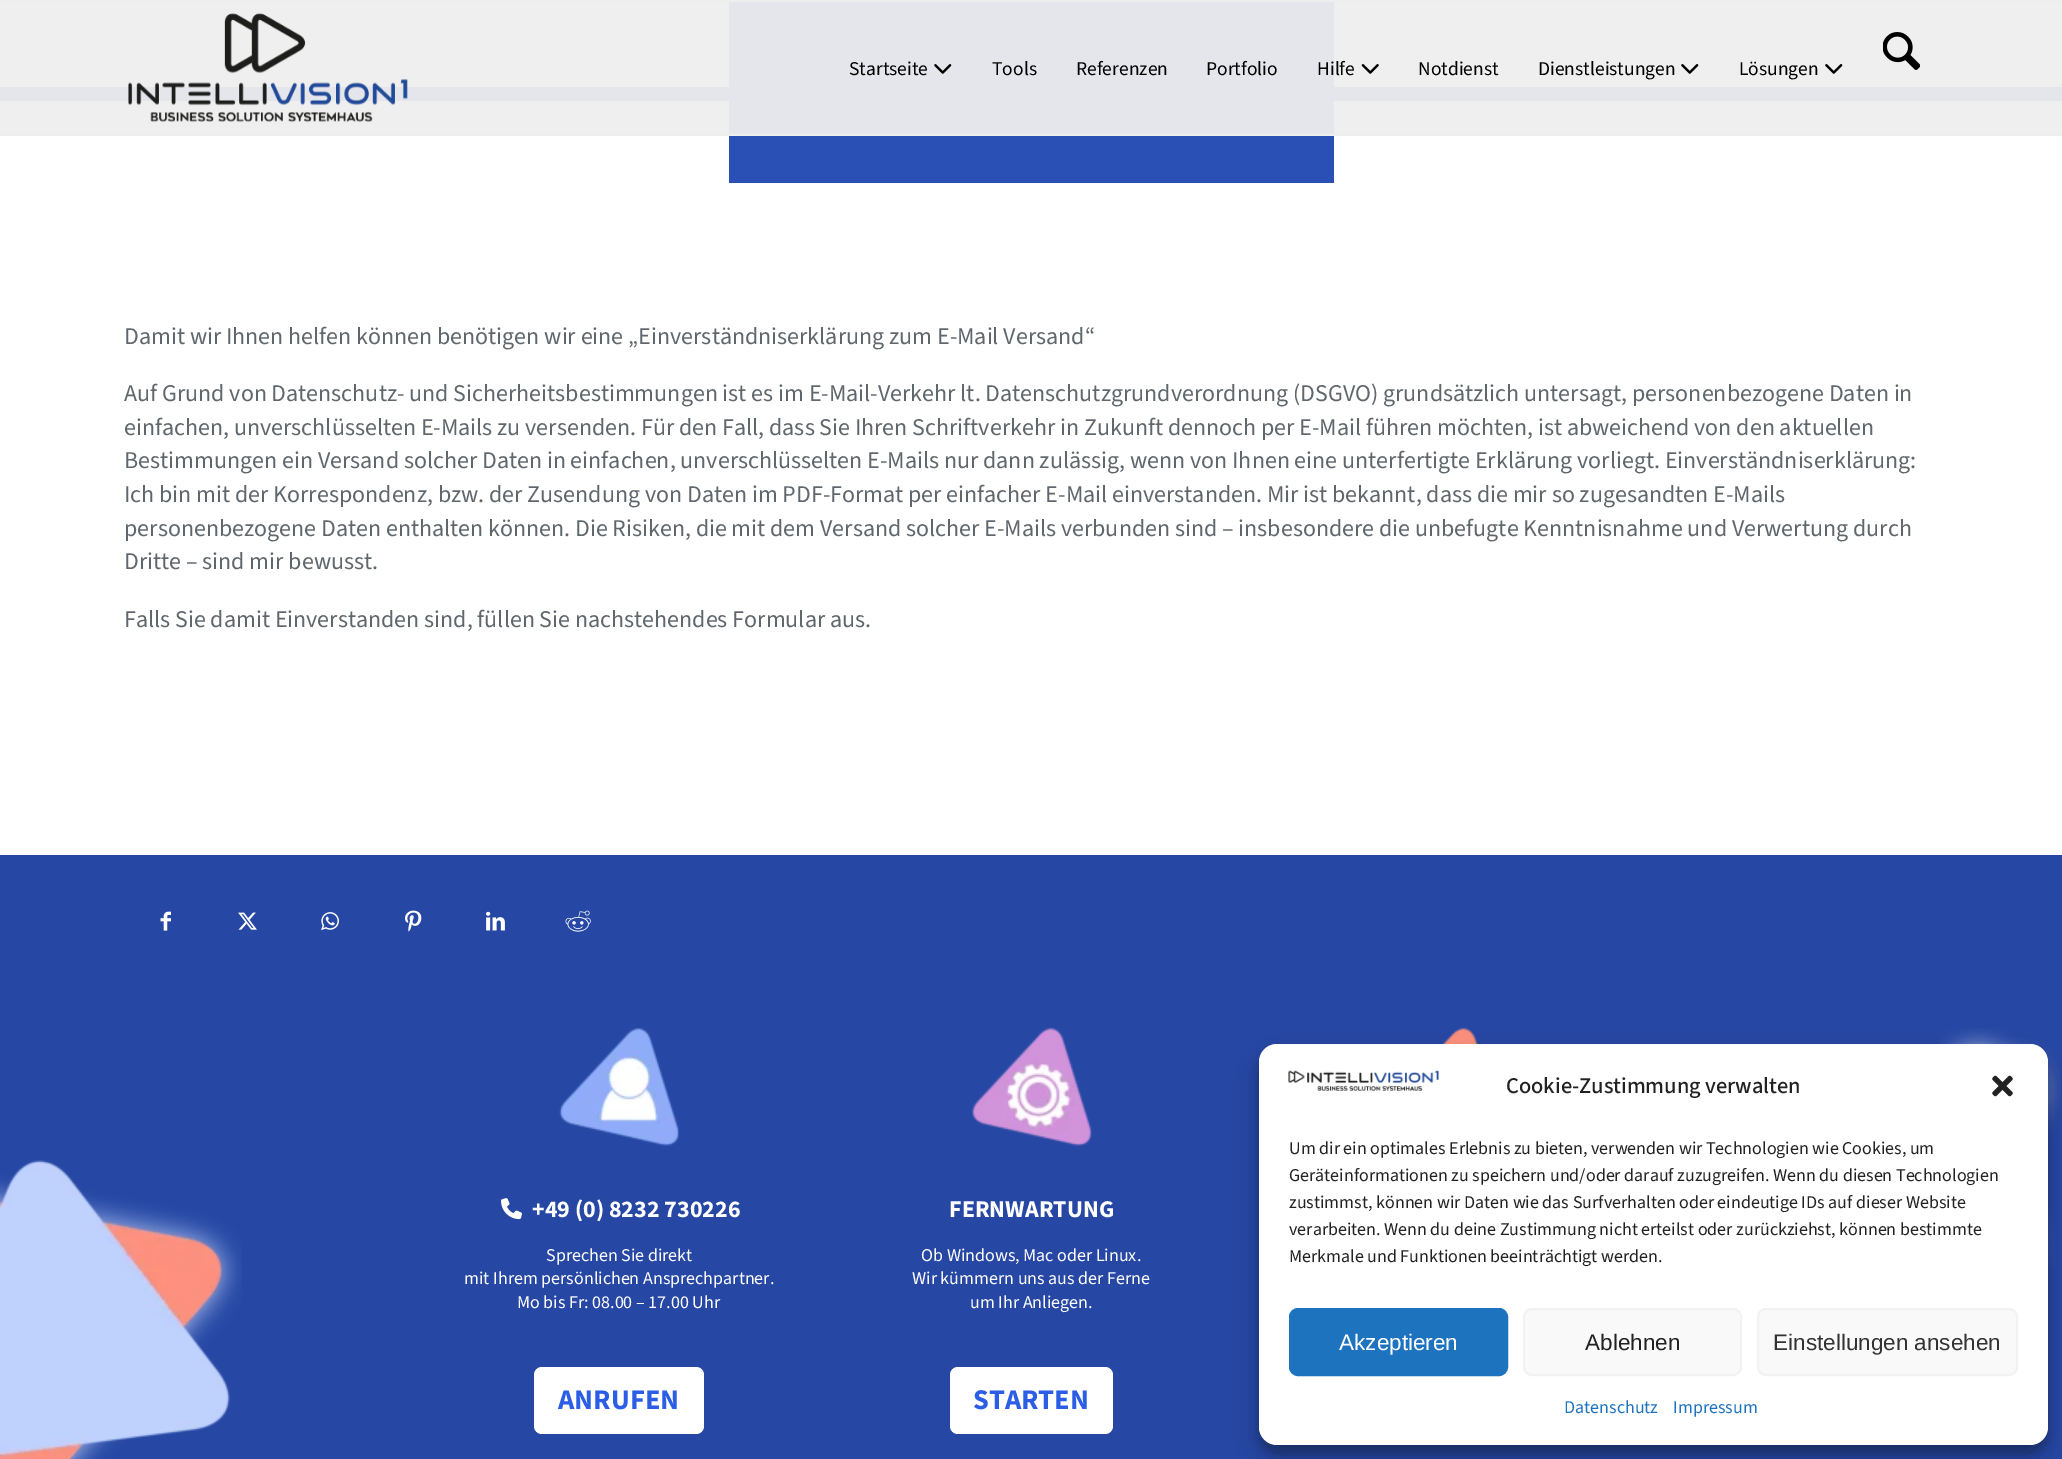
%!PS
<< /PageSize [2062 1459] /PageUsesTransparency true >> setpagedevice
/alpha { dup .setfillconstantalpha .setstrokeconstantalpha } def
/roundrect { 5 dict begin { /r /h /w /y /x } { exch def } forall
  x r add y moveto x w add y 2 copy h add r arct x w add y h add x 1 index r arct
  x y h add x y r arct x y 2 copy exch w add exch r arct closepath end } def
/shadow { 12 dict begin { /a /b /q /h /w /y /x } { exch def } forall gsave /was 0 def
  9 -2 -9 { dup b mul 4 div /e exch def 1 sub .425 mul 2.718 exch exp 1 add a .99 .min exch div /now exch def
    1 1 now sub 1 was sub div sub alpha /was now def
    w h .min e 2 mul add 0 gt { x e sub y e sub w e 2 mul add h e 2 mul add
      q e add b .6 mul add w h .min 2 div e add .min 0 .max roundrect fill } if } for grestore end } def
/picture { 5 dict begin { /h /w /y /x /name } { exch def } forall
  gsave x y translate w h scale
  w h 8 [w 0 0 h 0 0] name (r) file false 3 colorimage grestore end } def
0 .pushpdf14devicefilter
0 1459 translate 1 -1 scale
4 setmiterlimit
0.149 0.282 0.643 setrgbcolor
0 0 2062 1459 rectfill
0.933 setgray
0 0 2062 2 rectfill
0 134 2062 2 rectfill
0.937 setgray
0 2 2062 85 rectfill
0.894 0.902 0.922 setrgbcolor
0 87 729 14 rectfill
0.937 setgray
0 101 2062 33 rectfill
(img1.rgb) 128 13 280 109 picture
0.894 0.902 0.922 setrgbcolor
729 2 605 132 rectfill
/SourceSans3-Regular [19.5 0 0 -19.5 0 0] selectfont
0 setgray
849 75 moveto (Startseite) show
(img2.rgb) 934 64 18 10 picture
992 75 moveto (Tools) show
1076 75 moveto (Referenzen) show
1206 75 moveto (Portfolio) show
1317 75 moveto (Hilfe) show
(img3.rgb) 1361 64 18 10 picture
1418 75 moveto (Notdienst) show
1538 75 moveto (Dienstleistungen) show
(img4.rgb) 1681 64 18 10 picture
1739 75 moveto (Lösungen) show
(img4.rgb) 1825 64 18 10 picture
(img5.rgb) 1883 32 37 38 picture
0.894 0.902 0.922 setrgbcolor
1334 87 728 14 rectfill
1 setgray
0 136 2062 719 rectfill
0.165 0.31 0.71 setrgbcolor
729 136 605 47 rectfill
/SourceSans3-Regular [24 0 0 -24 0 0] selectfont
0.376 0.404 0.424 setrgbcolor
124 344 moveto (Damit wir Ihnen helfen können benötigen wir eine „Einverständniserklärung zum E-Mail Versand“) show
124 401 moveto (Auf Grund von Datenschutz- und Sicherheitsbestimmungen ist es im E-Mail-Verkehr lt. Datenschutzgrundverordnung \(DSGVO\) grundsätzlich untersagt, personenbezogene Daten in) show
124 435 moveto (einfachen, unverschlüsselten E-Mails zu versenden. Für den Fall, dass Sie Ihren Schriftverkehr in Zukunft dennoch per E-Mail führen möchten, ist abweichend von den aktuellen) show
124 468 moveto (Bestimmungen ein Versand solcher Daten in einfachen, unverschlüsselten E-Mails nur dann zulässig, wenn von Ihnen eine unterfertigte Erklärung vorliegt. Einverständniserklärung:) show
124 502 moveto (Ich bin mit der Korrespondenz, bzw. der Zusendung von Daten im PDF-Format per einfacher E-Mail einverstanden. Mir ist bekannt, dass die mir so zugesandten E-Mails) show
124 536 moveto (personenbezogene Daten enthalten können. Die Risiken, die mit dem Versand solcher E-Mails verbunden sind – insbesondere die unbefugte Kenntnisnahme und Verwertung durch) show
124 569 moveto (Dritte – sind mir bewusst.) show
124 627 moveto (Falls Sie damit Einverstanden sind, füllen Sie nachstehendes Formular aus.) show
(img6.rgb) 160 911 11 20 picture
(img7.rgb) 238 912 19 18 picture
(img8.rgb) 321 912 18 19 picture
(img9.rgb) 405 910 17 22 picture
(img10.rgb) 486 911 19 20 picture
(img11.rgb) 565 910 26 22 picture
(img12.rgb) 0 1160 242 299 picture
(img13.rgb) 559 1028 120 118 picture
(img14.rgb) 501 1198 21 22 picture
/SourceSans3-Bold [24 0 0 -24 0 0] selectfont
1 setgray
532 1217 moveto (+49 \(0\) 8232 730226) show
/SourceSans3-Regular [18 0 0 -18 0 0] selectfont
546 1261 moveto (Sprechen Sie direkt) show
464 1284 moveto (mit Ihrem persönlichen Ansprechpartner.) show
517 1308 moveto (Mo bis Fr: 08.00 – 17.00 Uhr) show
534 1367 170 67 8 roundrect fill
/SourceSans3-Bold [28.5 0 0 -28.5 0 0] selectfont
0.173 0.365 0.898 setrgbcolor
558 1409 moveto (ANRUFEN) show
(img15.rgb) 972 1027 120 119 picture
/SourceSans3-Bold [24 0 0 -24 0 0] selectfont
1 setgray
949 1217 moveto (FERNWARTUNG) show
/SourceSans3-Regular [18 0 0 -18 0 0] selectfont
921 1261 moveto (Ob Windows, Mac oder Linux.) show
912 1284 moveto (Wir kümmern uns aus der Ferne) show
970 1308 moveto (um Ihr Anliegen.) show
950 1367 163 67 8 roundrect fill
/SourceSans3-Bold [28.5 0 0 -28.5 0 0] selectfont
0.173 0.365 0.898 setrgbcolor
973 1409 moveto (STARTEN) show
(img16.rgb) 1442 1027 36 17 picture
(img17.rgb) 1939 1028 122 241 picture
0 setgray
1259 1053 789 401 18 4.5 0.23 shadow
1259 1059 789 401 18 15 0.19 shadow
1 setgray
1259 1044 789 401 18 roundrect fill
(img18.rgb) 1288 1070 151 21 picture
/SourceSans3-Medium [22.5 0 0 -22.5 0 0] selectfont
0.133 setgray
1506 1093 moveto (Cookie-Zustimmung verwalten) show
(img19.rgb) 1992 1075 21 22 picture
/SourceSans3-Regular [18 0 0 -18 0 0] selectfont
1289 1154 moveto (Um dir ein optimales Erlebnis zu bieten, verwenden wir Technologien wie Cookies, um) show
1289 1181 moveto (Geräteinformationen zu speichern und/oder darauf zuzugreifen. Wenn du diesen Technologien) show
1289 1208 moveto (zustimmst, können wir Daten wie das Surfverhalten oder eindeutige IDs auf dieser Website) show
1289 1235 moveto (verarbeiten. Wenn du deine Zustimmung nicht erteilst oder zurückziehst, können bestimmte) show
1289 1262 moveto (Merkmale und Funktionen beeinträchtigt werden.) show
0.118 0.451 0.745 setrgbcolor
1290 1309 217 66 8 roundrect gsave fill grestore
2 setlinewidth
stroke
/LiberationSans-Regular [22.5 0 0 -22.5 0 0] selectfont
1 setgray
1339 1350 moveto (Akzeptieren) show
0.976 setgray
1524 1309 217 66 8 roundrect gsave fill grestore
0.949 setgray
stroke
0.133 setgray
1585 1350 moveto (Ablehnen) show
0.976 setgray
1758 1309 259 66 8 roundrect gsave fill grestore
0.949 setgray
stroke
0.2 setgray
1773 1350 moveto (Einstellungen ansehen) show
/SourceSans3-Regular [18 0 0 -18 0 0] selectfont
0.118 0.451 0.745 setrgbcolor
1564 1413 moveto (Datenschutz) show
1673 1413 moveto (Impressum) show
.poppdf14devicefilter showpage
